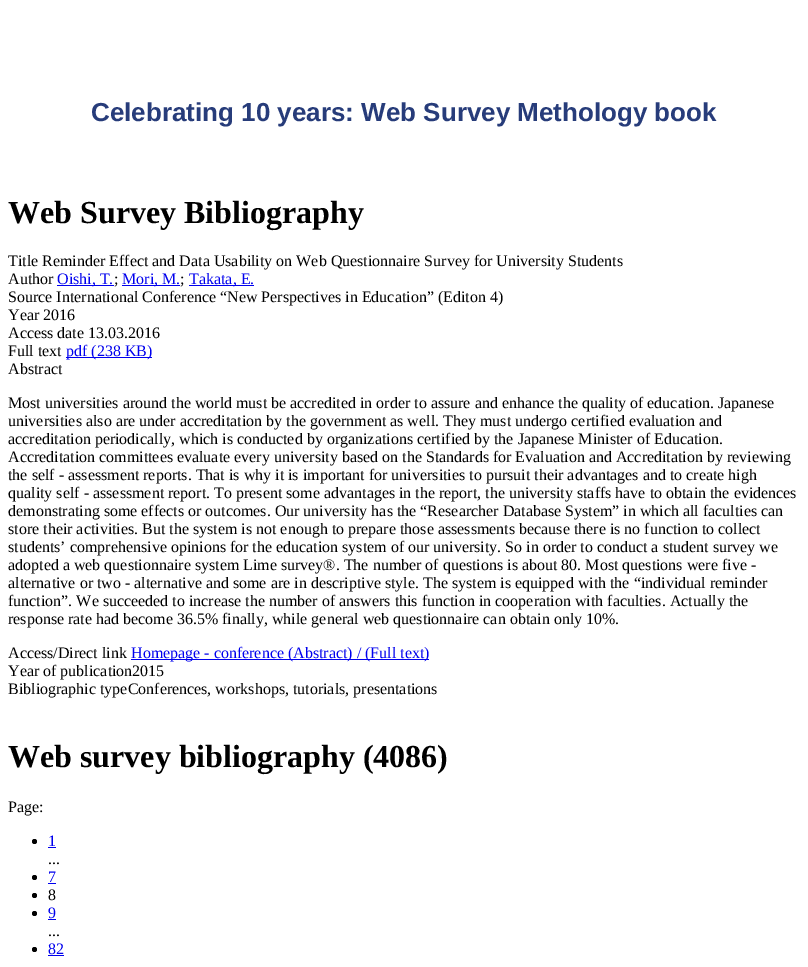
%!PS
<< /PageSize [808 967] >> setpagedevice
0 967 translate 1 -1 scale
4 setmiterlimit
1 setgray
0 0 808 967 rectfill
/LiberationSans-Bold [26 0 0 -26 0 0] selectfont
0.153 0.235 0.478 setrgbcolor
91 121 moveto (Celebrating 10 years: Web Survey Methology book) show
/LiberationSerif-Bold [32 0 0 -32 0 0] selectfont
0 setgray
8 223 moveto (Web Survey Bibliography) show
/LiberationSerif-Regular [16 0 0 -16 0 0] selectfont
8 266 moveto (Title Reminder Effect and Data Usability on Web Questionnaire Survey for University Students) show
8 284 moveto (Author) show
0 0 0.933 setrgbcolor
57 285 57 1 rectfill
57 284 moveto (Oishi, T.) show
0 setgray
114 284 moveto (;) show
0 0 0.933 setrgbcolor
122 285 58 1 rectfill
122 284 moveto (Mori, M.) show
0 setgray
180 284 moveto (;) show
0 0 0.933 setrgbcolor
189 285 65 1 rectfill
189 284 moveto (Takata, E.) show
0 setgray
8 302 moveto (Source International Conference “New Perspectives in Education” \(Editon 4\)) show
8 320 moveto (Year 2016) show
8 338 moveto (Access date 13.03.2016) show
8 356 moveto (Full text) show
0 0 0.933 setrgbcolor
66 357 86 1 rectfill
66 356 moveto (pdf \(238 KB\)) show
0 setgray
8 374 moveto (Abstract) show
8 408 moveto (Most universities around the world must be accredited in order to assure and enhance the quality of education. Japanese) show
8 426 moveto (universities also are under accreditation by the government as well. They must undergo certified evaluation and) show
8 444 moveto (accreditation periodically, which is conducted by organizations certified by the Japanese Minister of Education.) show
8 462 moveto (Accreditation committees evaluate every university based on the Standards for Evaluation and Accreditation by reviewing) show
8 480 moveto (the self - assessment reports. That is why it is important for universities to pursuit their advantages and to create high) show
8 498 moveto (quality self - assessment report. To present some advantages in the report, the university staffs have to obtain the evidences) show
8 516 moveto (demonstrating some effects or outcomes. Our university has the “Researcher Database System” in which all faculties can) show
8 534 moveto (store their activities. But the system is not enough to prepare those assessments because there is no function to collect) show
8 552 moveto (students’ comprehensive opinions for the education system of our university. So in order to conduct a student survey we) show
8 570 moveto (adopted a web questionnaire system Lime survey®. The number of questions is about 80. Most questions were five -) show
8 588 moveto (alternative or two - alternative and some are in descriptive style. The system is equipped with the “individual reminder) show
8 606 moveto (function”. We succeeded to increase the number of answers this function in cooperation with faculties. Actually the) show
8 624 moveto (response rate had become 36.5% finally, while general web questionnaire can obtain only 10%.) show
8 658 moveto (Access/Direct link) show
0 0 0.933 setrgbcolor
131 659 298 1 rectfill
131 658 moveto (Homepage - conference \(Abstract\) / \(Full text\)) show
0 setgray
8 676 moveto (Year of publication2015) show
8 694 moveto (Bibliographic typeConferences, workshops, tutorials, presentations) show
/LiberationSerif-Bold [32 0 0 -32 0 0] selectfont
8 767 moveto (Web survey bibliography \(4086\)) show
/LiberationSerif-Regular [16 0 0 -16 0 0] selectfont
8 812 moveto (Page:) show
newpath 34.5 841.5 2.5 0 360 arc closepath fill
0 0 0.933 setrgbcolor
48 846 moveto (1) show
48 847 8 1 rectfill
0 setgray
48 864 moveto (...) show
newpath 34.5 877.5 2.5 0 360 arc closepath fill
0 0 0.933 setrgbcolor
48 882 moveto (7) show
48 883 8 1 rectfill
0 setgray
newpath 34.5 895.5 2.5 0 360 arc closepath fill
48 900 moveto (8) show
newpath 34.5 913.5 2.5 0 360 arc closepath fill
0 0 0.933 setrgbcolor
48 918 moveto (9) show
48 919 8 1 rectfill
0 setgray
48 936 moveto (...) show
newpath 34.5 949.5 2.5 0 360 arc closepath fill
0 0 0.933 setrgbcolor
48 954 moveto (82) show
48 955 16 1 rectfill
showpage
